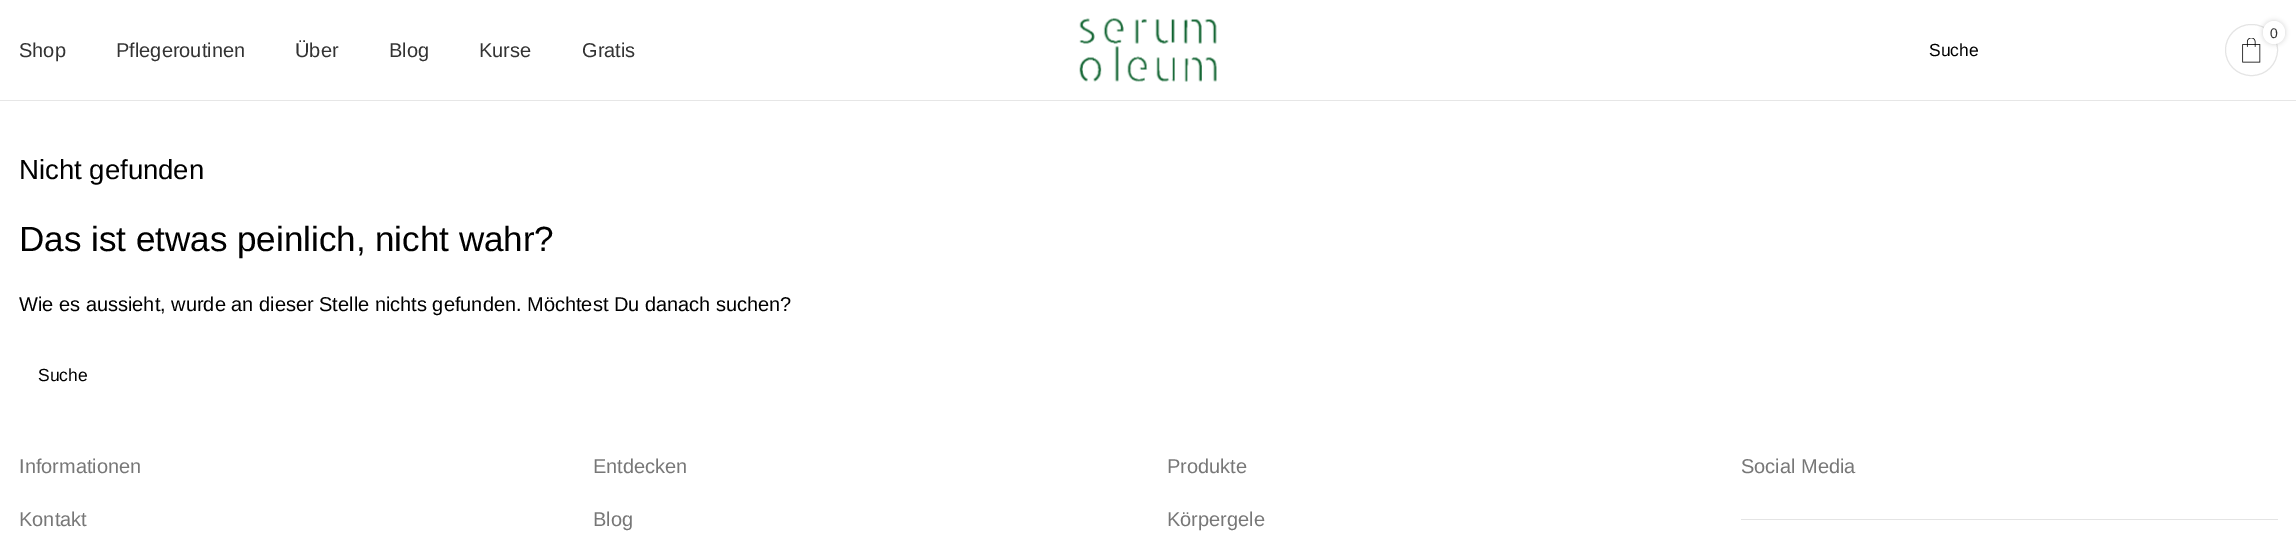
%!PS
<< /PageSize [2296 537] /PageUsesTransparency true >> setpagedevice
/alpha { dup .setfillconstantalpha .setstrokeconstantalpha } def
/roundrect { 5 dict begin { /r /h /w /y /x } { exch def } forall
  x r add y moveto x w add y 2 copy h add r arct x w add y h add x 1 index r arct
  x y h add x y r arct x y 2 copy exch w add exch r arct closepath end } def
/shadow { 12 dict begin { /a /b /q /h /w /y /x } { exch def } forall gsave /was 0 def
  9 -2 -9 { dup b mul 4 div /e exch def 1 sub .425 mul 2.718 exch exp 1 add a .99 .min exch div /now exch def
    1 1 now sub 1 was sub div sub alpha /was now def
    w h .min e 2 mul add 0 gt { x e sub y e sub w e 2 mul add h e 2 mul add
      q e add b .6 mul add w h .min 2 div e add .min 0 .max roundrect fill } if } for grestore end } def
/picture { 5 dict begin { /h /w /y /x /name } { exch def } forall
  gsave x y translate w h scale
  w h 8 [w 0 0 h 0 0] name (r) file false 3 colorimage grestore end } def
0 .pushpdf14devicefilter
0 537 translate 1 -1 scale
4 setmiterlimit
1 setgray
0 0 2296 537 rectfill
0.902 setgray
0 100 2296 1 rectfill
/LiberationSans-Regular [20 0 0 -20 0 0] selectfont
0.2 setgray
19 57 moveto (Shop) show
116 57 moveto (Pflegeroutinen) show
295 57 moveto (Über) show
389 57 moveto (Blog) show
479 57 moveto (Kurse) show
582 57 moveto (Gratis) show
(img1.rgb) 1079 18 138 64 picture
0.894 setgray
2225.5 24.5 52 51 25.5 roundrect stroke
(img2.rgb) 2242 38 19 25 picture
0 setgray
2263 21 22 23 11 2.5 0.17 shadow
1 setgray
2263 21 22 23 11 roundrect fill
/LiberationSans-Regular [14 0 0 -14 0 0] selectfont
0.2 setgray
2270 38 moveto (0) show
/LiberationSans-Regular [17.5 0 0 -17.5 0 0] selectfont
0 setgray
1929 56 moveto (Suche) show
/LiberationSans-Regular [27.5 0 0 -27.5 0 0] selectfont
19 179 moveto (Nicht gefunden) show
/LiberationSans-Regular [35 0 0 -35 0 0] selectfont
19 251 moveto (Das ist etwas peinlich, nicht wahr?) show
/LiberationSans-Regular [20 0 0 -20 0 0] selectfont
19 311 moveto (Wie es aussieht, wurde an dieser Stelle nichts gefunden. Möchtest Du danach suchen?) show
/LiberationSans-Regular [17.5 0 0 -17.5 0 0] selectfont
38 381 moveto (Suche) show
/LiberationSans-Regular [20 0 0 -20 0 0] selectfont
0.467 setgray
19 473 moveto (Informationen) show
19 526 moveto (Kontakt) show
593 473 moveto (Entdecken) show
593 526 moveto (Blog) show
1167 473 moveto (Produkte) show
1167 526 moveto (Körpergele) show
0.894 setgray
1741 519 537 1 rectfill
0.467 setgray
1741 473 moveto (Social Media) show
.poppdf14devicefilter showpage
